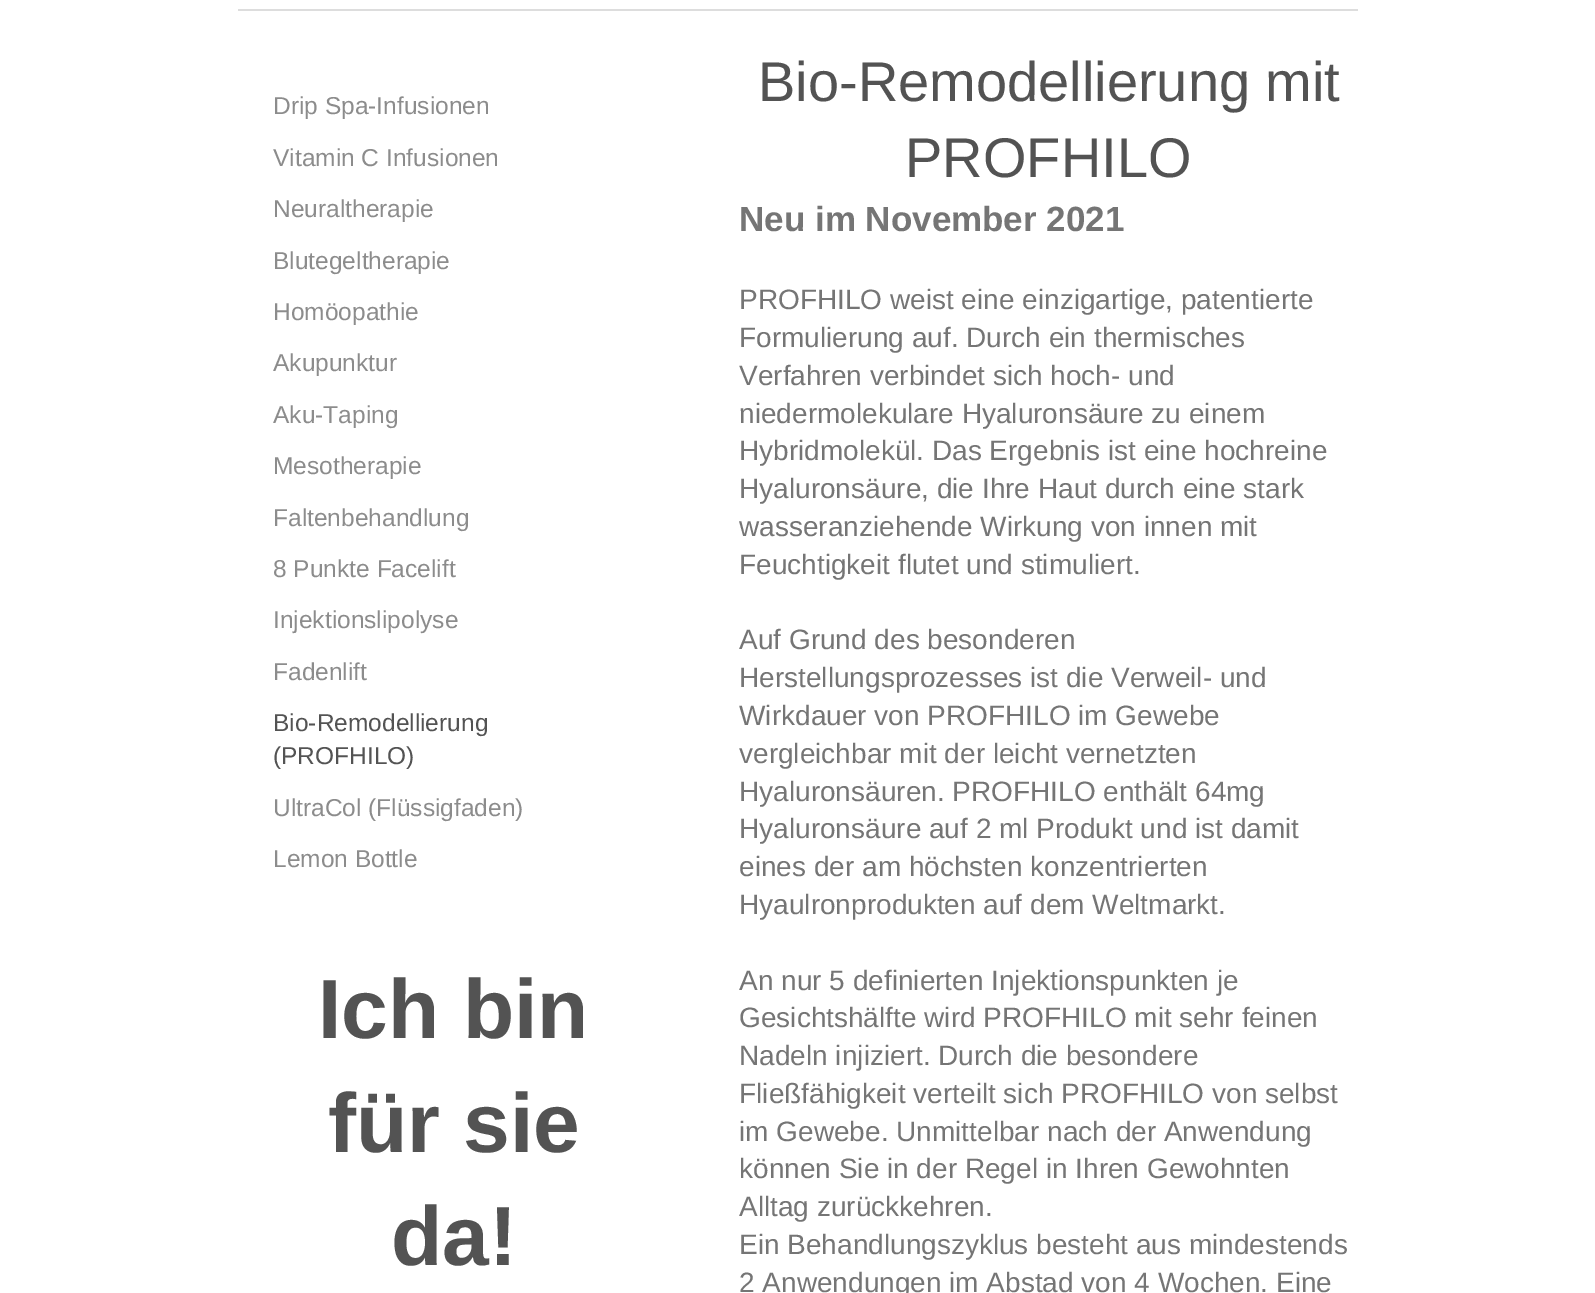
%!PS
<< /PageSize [1595 1293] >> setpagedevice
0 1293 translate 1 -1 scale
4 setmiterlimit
1 setgray
0 0 1595 1293 rectfill
0.867 setgray
238 9 1120 2 rectfill
/LiberationSans-Regular [24.5 0 0 -24.5 0 0] selectfont
0.549 setgray
273 114 moveto (Drip Spa-Infusionen) show
273 166 moveto (Vitamin C Infusionen) show
273 217 moveto (Neuraltherapie) show
273 269 moveto (Blutegeltherapie) show
273 320 moveto (Homöopathie) show
273 371 moveto (Akupunktur) show
273 423 moveto (Aku-Taping) show
273 474 moveto (Mesotherapie) show
273 526 moveto (Faltenbehandlung) show
273 577 moveto (8 Punkte Facelift) show
273 628 moveto (Injektionslipolyse) show
273 680 moveto (Fadenlift) show
0.325 setgray
273 731 moveto (Bio-Remodellierung) show
273 764 moveto (\(PROFHILO\)) show
0.549 setgray
273 816 moveto (UltraCol \(Flüssigfaden\)) show
273 867 moveto (Lemon Bottle) show
/LiberationSans-Bold [84 0 0 -84 0 0] selectfont
0.325 setgray
318 1038 moveto (Ich bin) show
328 1152 moveto (für sie) show
391 1265 moveto (da!) show
/LiberationSans-Regular [56 0 0 -56 0 0] selectfont
758 101 moveto (Bio-Remodellierung mit) show
905 177 moveto (PROFHILO) show
/LiberationSans-Bold [35 0 0 -35 0 0] selectfont
0.459 setgray
739 231 moveto (Neu im November 2021) show
/LiberationSans-Regular [28 0 0 -28 0 0] selectfont
739 309 moveto (PROFHILO weist eine einzigartige, patentierte) show
739 347 moveto (Formulierung auf. Durch ein thermisches) show
739 385 moveto (Verfahren verbindet sich hoch- und) show
739 423 moveto (niedermolekulare Hyaluronsäure zu einem) show
739 460 moveto (Hybridmolekül. Das Ergebnis ist eine hochreine) show
739 498 moveto (Hyaluronsäure, die Ihre Haut durch eine stark) show
739 536 moveto (wasseranziehende Wirkung von innen mit) show
739 574 moveto (Feuchtigkeit flutet und stimuliert.) show
739 649 moveto (Auf Grund des besonderen) show
739 687 moveto (Herstellungsprozesses ist die Verweil- und) show
739 725 moveto (Wirkdauer von PROFHILO im Gewebe) show
739 763 moveto (vergleichbar mit der leicht vernetzten) show
739 801 moveto (Hyaluronsäuren. PROFHILO enthält 64mg) show
739 838 moveto (Hyaluronsäure auf 2 ml Produkt und ist damit) show
739 876 moveto (eines der am höchsten konzentrierten) show
739 914 moveto (Hyaulronprodukten auf dem Weltmarkt.) show
739 990 moveto (An nur 5 definierten Injektionspunkten je) show
739 1027 moveto (Gesichtshälfte wird PROFHILO mit sehr feinen) show
739 1065 moveto (Nadeln injiziert. Durch die besondere) show
739 1103 moveto (Fließfähigkeit verteilt sich PROFHILO von selbst) show
739 1141 moveto (im Gewebe. Unmittelbar nach der Anwendung) show
739 1178 moveto (können Sie in der Regel in Ihren Gewohnten) show
739 1216 moveto (Alltag zurückkehren.) show
739 1254 moveto (Ein Behandlungszyklus besteht aus mindestends) show
739 1292 moveto (2 Anwendungen im Abstad von 4 Wochen. Eine) show
showpage
